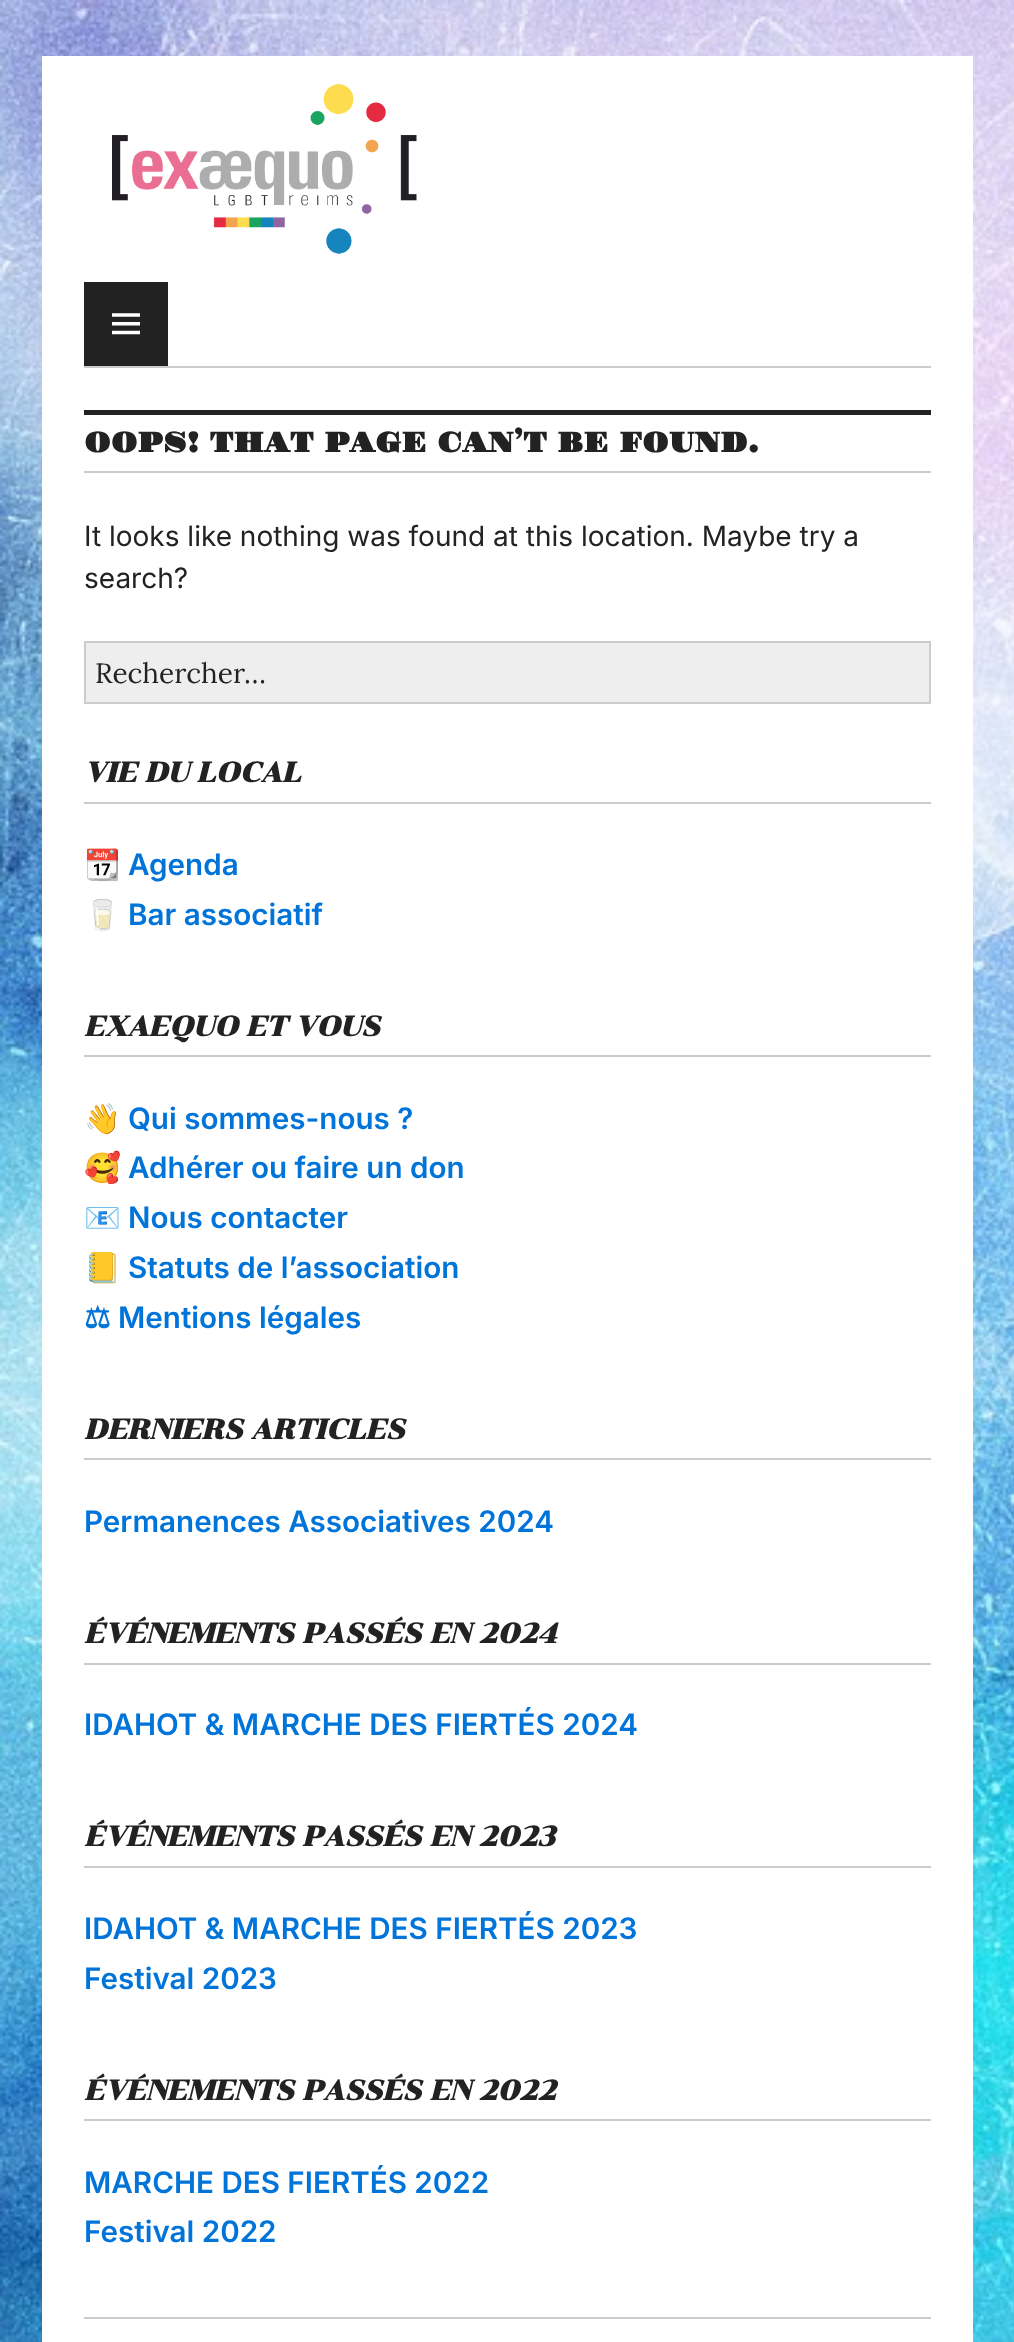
<svg xmlns="http://www.w3.org/2000/svg" width="1014" height="2342" viewBox="0 0 1014 2342">
  <rect width="100%" height="100%" fill="#ffffff"/>
  <image x="0" y="0" width="1014" height="2342" href="img1.png"/>
  <rect x="42" y="56" width="931" height="2286" fill="#ffffff"/>
  <image x="112" y="84" width="305" height="170" href="img2.png"/>
  <rect x="84" y="366" width="847" height="2" fill="#cccccc"/>
  <rect x="84" y="282" width="84" height="84" fill="#222222"/>
  <image x="112" y="313" width="28" height="22" href="img3.png"/>
  <rect x="84" y="410" width="847" height="5" fill="#222222"/>
  <rect x="84" y="471" width="847" height="2" fill="#cccccc"/>
  <text x="84" y="452" font-family="Gravitas One" font-size="28" font-weight="bold" fill="#222222">OOPS! THAT PAGE CAN’T BE FOUND.</text>
  <text x="84" y="546" font-family="Inter" font-size="28" fill="#222222">It looks like nothing was found at this location. Maybe try a</text>
  <text x="84" y="588" font-family="Inter" font-size="28" fill="#222222">search?</text>
  <rect x="85" y="642" width="845" height="61" fill="#eeeeee" stroke="#cccccc" stroke-width="2"/>
  <text x="95" y="683" font-family="Lora" font-size="28" fill="#222222">Rechercher…</text>
  <rect x="84" y="802" width="847" height="2" fill="#cccccc"/>
  <text x="84" y="782" font-family="Chonburi" font-size="28" font-weight="bold" font-style="italic" fill="#222222">VIE DU LOCAL</text>
  <text x="84" y="875" font-family="Noto Color Emoji" font-size="29.6" font-weight="bold" fill="#0074d9">📆</text>
  <text x="128" y="875" font-family="Inter" font-size="29.6" font-weight="600" fill="#0074d9">Agenda</text>
  <text x="84" y="925" font-family="Noto Color Emoji" font-size="29.6" font-weight="bold" fill="#0074d9">🥛</text>
  <text x="128" y="925" font-family="Inter" font-size="29.6" font-weight="600" fill="#0074d9">Bar associatif</text>
  <rect x="84" y="1055" width="847" height="2" fill="#cccccc"/>
  <text x="84" y="1036" font-family="Chonburi" font-size="28" font-weight="bold" font-style="italic" fill="#222222">EXAEQUO ET VOUS</text>
  <text x="84" y="1129" font-family="Noto Color Emoji" font-size="29.6" font-weight="bold" fill="#0074d9">👋</text>
  <text x="128" y="1129" font-family="Inter" font-size="29.6" font-weight="600" fill="#0074d9">Qui sommes-nous ?</text>
  <text x="84" y="1178" font-family="Noto Color Emoji" font-size="29.6" font-weight="bold" fill="#0074d9">🥰</text>
  <text x="128" y="1178" font-family="Inter" font-size="29.6" font-weight="600" fill="#0074d9">Adhérer ou faire un don</text>
  <text x="84" y="1228" font-family="Noto Color Emoji" font-size="29.6" font-weight="bold" fill="#0074d9">📧</text>
  <text x="128" y="1228" font-family="Inter" font-size="29.6" font-weight="600" fill="#0074d9">Nous contacter</text>
  <text x="84" y="1278" font-family="Noto Color Emoji" font-size="29.6" font-weight="bold" fill="#0074d9">📒</text>
  <text x="128" y="1278" font-family="Inter" font-size="29.6" font-weight="600" fill="#0074d9">Statuts de l’association</text>
  <text x="84" y="1328" font-family="DejaVu Sans" font-size="29.6" font-weight="bold" fill="#0074d9">⚖</text>
  <text x="118" y="1328" font-family="Inter" font-size="29.6" font-weight="600" fill="#0074d9">Mentions légales</text>
  <rect x="84" y="1458" width="847" height="2" fill="#cccccc"/>
  <text x="84" y="1439" font-family="Chonburi" font-size="28" font-weight="bold" font-style="italic" fill="#222222">DERNIERS ARTICLES</text>
  <text x="84" y="1532" font-family="Inter" font-size="29.6" font-weight="600" fill="#0074d9">Permanences Associatives 2024</text>
  <rect x="84" y="1663" width="847" height="2" fill="#cccccc"/>
  <text x="84" y="1643" font-family="Chonburi" font-size="28" font-weight="bold" font-style="italic" fill="#222222">ÉVÉNEMENTS PASSÉS EN 2024</text>
  <text x="84" y="1735" font-family="Inter" font-size="29.6" font-weight="600" fill="#0074d9">IDAHOT &amp; MARCHE DES FIERTÉS 2024</text>
  <rect x="84" y="1866" width="847" height="2" fill="#cccccc"/>
  <text x="84" y="1846" font-family="Chonburi" font-size="28" font-weight="bold" font-style="italic" fill="#222222">ÉVÉNEMENTS PASSÉS EN 2023</text>
  <text x="84" y="1939" font-family="Inter" font-size="29.6" font-weight="600" fill="#0074d9">IDAHOT &amp; MARCHE DES FIERTÉS 2023</text>
  <text x="84" y="1989" font-family="Inter" font-size="29.6" font-weight="600" fill="#0074d9">Festival 2023</text>
  <rect x="84" y="2119" width="847" height="2" fill="#cccccc"/>
  <text x="84" y="2100" font-family="Chonburi" font-size="28" font-weight="bold" font-style="italic" fill="#222222">ÉVÉNEMENTS PASSÉS EN 2022</text>
  <text x="84" y="2193" font-family="Inter" font-size="29.6" font-weight="600" fill="#0074d9">MARCHE DES FIERTÉS 2022</text>
  <text x="84" y="2242" font-family="Inter" font-size="29.6" font-weight="600" fill="#0074d9">Festival 2022</text>
  <rect x="84" y="2317" width="847" height="2" fill="#cccccc"/>
</svg>
